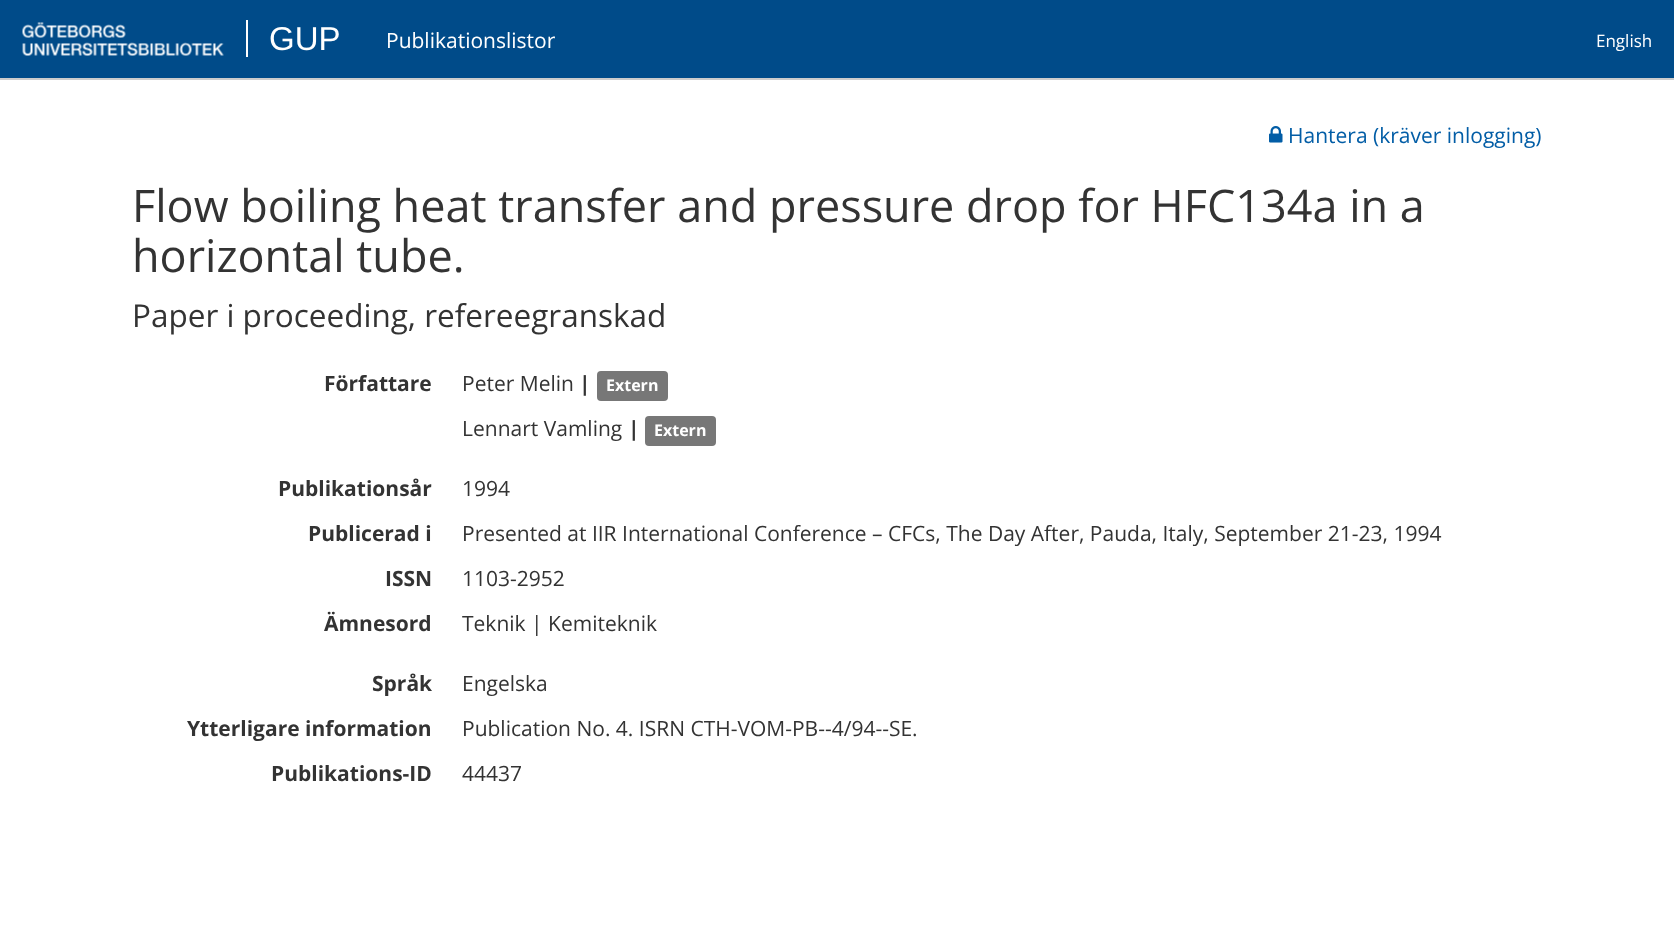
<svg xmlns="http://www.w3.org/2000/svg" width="1674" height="940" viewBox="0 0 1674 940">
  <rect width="100%" height="100%" fill="#ffffff"/>
  <rect x="0" y="0" width="1674" height="78" fill="#004b89"/>
  <rect x="0" y="78" width="1674" height="2" fill="#cccccc"/>
  <image x="22" y="22" width="202" height="34" href="img1.png"/>
  <rect x="246" y="20" width="2" height="37" fill="#ffffff"/>
  <text x="269" y="50" font-family="Liberation Sans" font-size="33" fill="#ffffff">GUP</text>
  <text x="386" y="48" font-family="Open Sans" font-size="21" fill="#ffffff">Publikationslistor</text>
  <text x="1596" y="47" font-family="Open Sans" font-size="17" fill="#ffffff">English</text>
  <image x="1269" y="126" width="14" height="17" href="img2.png"/>
  <text x="1288" y="143" font-family="Open Sans" font-size="21" fill="#025da6">Hantera (kräver inlogging)</text>
  <text x="132" y="222" font-family="Open Sans" font-size="45" fill="#333333">Flow boiling heat transfer and pressure drop for HFC134a in a</text>
  <text x="132" y="272" font-family="Open Sans" font-size="45" fill="#333333">horizontal tube.</text>
  <text x="132" y="327" font-family="Open Sans" font-size="31.5" fill="#333333">Paper i proceeding, refereegranskad</text>
  <text x="324" y="391" font-family="Open Sans" font-size="21" font-weight="bold" fill="#333333">Författare</text>
  <text x="462" y="391" font-family="Open Sans" font-size="21" fill="#333333">Peter Melin</text>
  <text x="579" y="391" font-family="Open Sans" font-size="21" font-weight="bold" fill="#333333">|</text>
  <rect x="597" y="371" width="71" height="30" rx="4" fill="#777777"/>
  <text x="606" y="391" font-family="Open Sans" font-size="16" font-weight="bold" fill="#ffffff">Extern</text>
  <text x="462" y="436" font-family="Open Sans" font-size="21" fill="#333333">Lennart Vamling</text>
  <text x="628" y="436" font-family="Open Sans" font-size="21" font-weight="bold" fill="#333333">|</text>
  <rect x="645" y="416" width="71" height="30" rx="4" fill="#777777"/>
  <text x="654" y="436" font-family="Open Sans" font-size="16" font-weight="bold" fill="#ffffff">Extern</text>
  <text x="278" y="496" font-family="Open Sans" font-size="21" font-weight="bold" fill="#333333">Publikationsår</text>
  <text x="462" y="496" font-family="Open Sans" font-size="21" fill="#333333">1994</text>
  <text x="308" y="541" font-family="Open Sans" font-size="21" font-weight="bold" fill="#333333">Publicerad i</text>
  <text x="462" y="541" font-family="Open Sans" font-size="21" fill="#333333">Presented at IIR International Conference – CFCs, The Day After, Pauda, Italy, September 21-23, 1994</text>
  <text x="385" y="586" font-family="Open Sans" font-size="21" font-weight="bold" fill="#333333">ISSN</text>
  <text x="462" y="586" font-family="Open Sans" font-size="21" fill="#333333">1103-2952</text>
  <text x="324" y="631" font-family="Open Sans" font-size="21" font-weight="bold" fill="#333333">Ämnesord</text>
  <text x="462" y="631" font-family="Open Sans" font-size="21" fill="#333333">Teknik | Kemiteknik</text>
  <text x="372" y="691" font-family="Open Sans" font-size="21" font-weight="bold" fill="#333333">Språk</text>
  <text x="462" y="691" font-family="Open Sans" font-size="21" fill="#333333">Engelska</text>
  <text x="187" y="736" font-family="Open Sans" font-size="21" font-weight="bold" fill="#333333">Ytterligare information</text>
  <text x="462" y="736" font-family="Open Sans" font-size="21" fill="#333333">Publication No. 4. ISRN CTH-VOM-PB--4/94--SE.</text>
  <text x="271" y="781" font-family="Open Sans" font-size="21" font-weight="bold" fill="#333333">Publikations-ID</text>
  <text x="462" y="781" font-family="Open Sans" font-size="21" fill="#333333">44437</text>
</svg>
